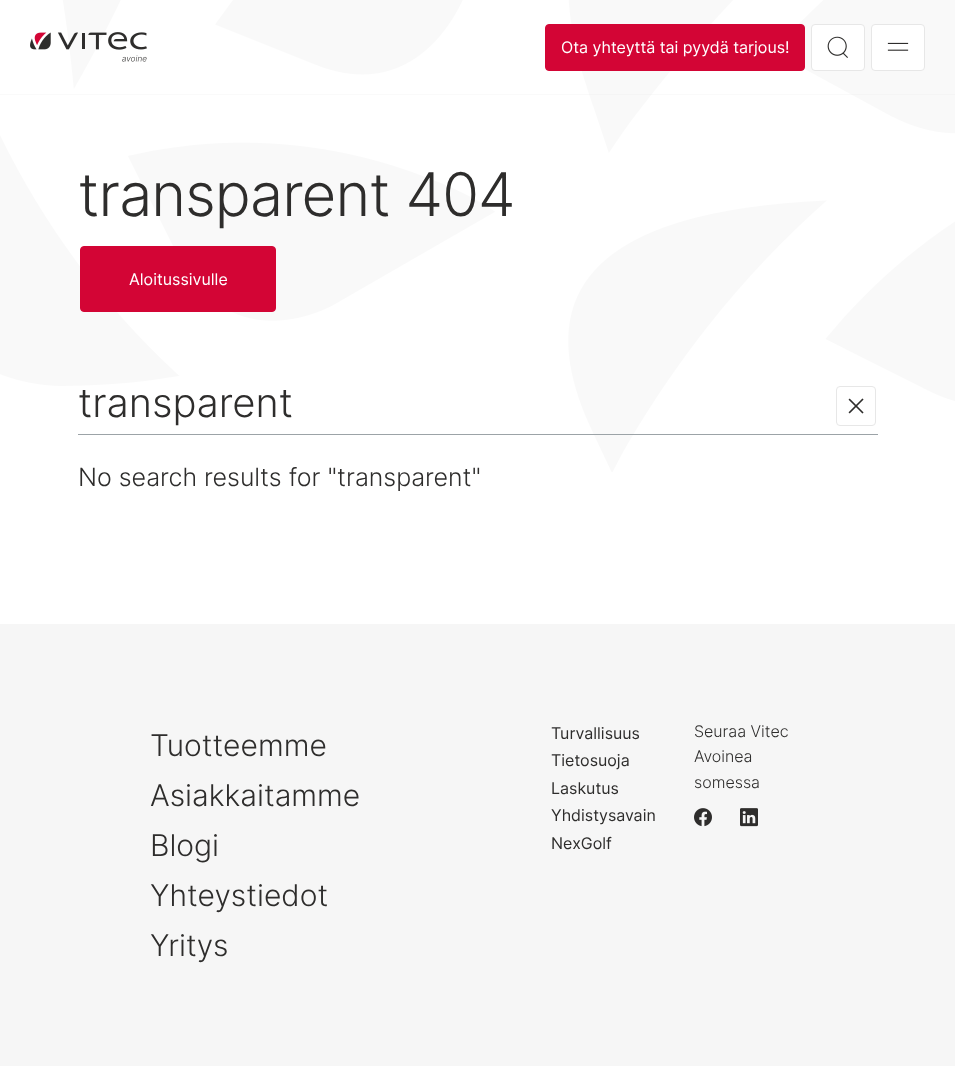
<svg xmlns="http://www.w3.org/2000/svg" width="955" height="1074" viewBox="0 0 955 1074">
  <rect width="100%" height="100%" fill="#ffffff"/>
  <image x="0" y="0" width="955" height="472" href="img4.png"/>
  <rect x="0" y="94" width="955" height="1" fill="#e7e7e7" fill-opacity="0.2"/>
  <image x="30" y="32" width="117" height="30" href="img1.png"/>
  <rect x="545.5" y="24.5" width="259" height="46" rx="3.5" fill="#d30535" stroke="#d30535"/>
  <text x="561" y="53" font-family="Inter" font-size="16" fill="#ffffff">Ota yhteyttä tai pyydä tarjous!</text>
  <rect x="811.5" y="24.5" width="53" height="46" rx="3.5" fill="#ffffff" stroke="#e7e7e7"/>
  <image x="827" y="36" width="21" height="22" href="img2.png"/>
  <rect x="871.5" y="24.5" width="53" height="46" rx="3.5" fill="#ffffff" stroke="#e7e7e7"/>
  <image x="887" y="42" width="22" height="9" href="img3.png"/>
  <text x="78" y="216" font-family="Inter" font-size="60" font-weight="300" letter-spacing="-1" fill="#2e2d2c">transparent 404</text>
  <rect x="80.5" y="246.5" width="195" height="65" rx="3.5" fill="#d30535" stroke="#d30535"/>
  <text x="129" y="285" font-family="Inter" font-size="16" fill="#ffffff">Aloitussivulle</text>
  <rect x="78" y="434" width="800" height="1" fill="#9ca3a7"/>
  <text x="78" y="417" font-family="Inter" font-size="40" font-weight="300" fill="#2e2d2c">transparent</text>
  <rect x="836.5" y="386.5" width="39" height="39" rx="3.5" fill="none" stroke="#e7e7e7"/>
  <image x="848" y="398" width="16" height="16" href="img5.png"/>
  <text x="78" y="486" font-family="Inter" font-size="25" font-weight="300" fill="#2e2d2c">No search results for "transparent"</text>
  <rect x="0" y="624" width="955" height="442" fill="#f6f6f6"/>
  <text x="150" y="756" font-family="Inter" font-size="30" font-weight="300" fill="#2e2d2c">Tuotteemme</text>
  <text x="150" y="806" font-family="Inter" font-size="30" font-weight="300" fill="#2e2d2c">Asiakkaitamme</text>
  <text x="150" y="856" font-family="Inter" font-size="30" font-weight="300" fill="#2e2d2c">Blogi</text>
  <text x="150" y="906" font-family="Inter" font-size="30" font-weight="300" fill="#2e2d2c">Yhteystiedot</text>
  <text x="150" y="956" font-family="Inter" font-size="30" font-weight="300" fill="#2e2d2c">Yritys</text>
  <text x="551" y="739" font-family="Inter" font-size="16" fill="#2e2d2c">Turvallisuus</text>
  <text x="551" y="766" font-family="Inter" font-size="16" fill="#2e2d2c">Tietosuoja</text>
  <text x="551" y="794" font-family="Inter" font-size="16" fill="#2e2d2c">Laskutus</text>
  <text x="551" y="821" font-family="Inter" font-size="16" fill="#2e2d2c">Yhdistysavain</text>
  <text x="551" y="849" font-family="Inter" font-size="16" fill="#2e2d2c">NexGolf</text>
  <text x="694" y="737" font-family="Inter" font-size="16" font-weight="300" fill="#2e2d2c">Seuraa Vitec</text>
  <text x="694" y="762" font-family="Inter" font-size="16" font-weight="300" fill="#2e2d2c">Avoinea</text>
  <text x="694" y="788" font-family="Inter" font-size="16" font-weight="300" fill="#2e2d2c">somessa</text>
  <image x="694" y="808" width="18" height="19" href="img6.png"/>
  <image x="740" y="808" width="18" height="19" href="img7.png"/>
</svg>
